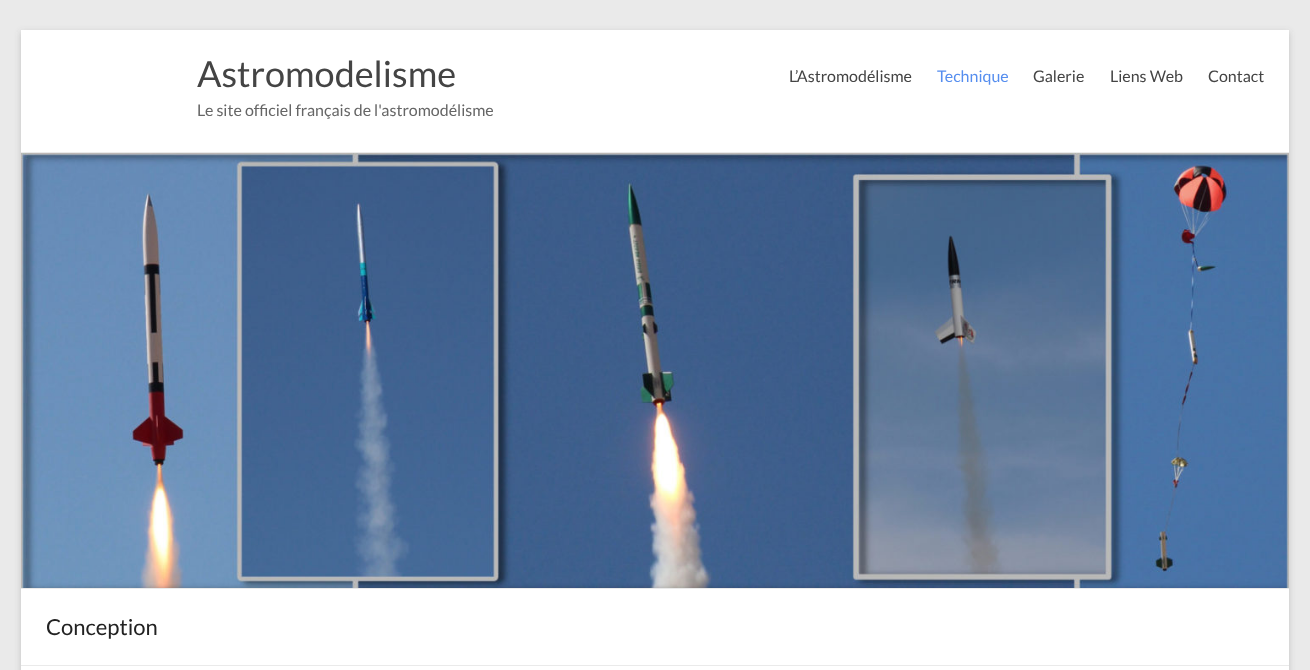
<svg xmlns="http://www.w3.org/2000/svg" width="1310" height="670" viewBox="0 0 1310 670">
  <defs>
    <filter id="blur1" x="-50%" y="-200%" width="200%" height="500%"><feGaussianBlur stdDeviation="3"/></filter>
  </defs>
  <rect width="100%" height="100%" fill="#eaeaea"/>
  <rect x="21" y="32" width="1268" height="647" fill="#646464" fill-opacity="0.3" filter="url(#blur1)"/>
  <rect x="21" y="30" width="1268" height="640" fill="#ffffff"/>
  <rect x="21" y="152" width="1268" height="1" fill="#eaeaea"/>
  <text x="197" y="87" font-family="Lato" font-size="36" fill="#444444">Astromodelisme</text>
  <text x="197" y="116" font-family="Lato" font-size="16" fill="#666666">Le site officiel français de l'astromodélisme</text>
  <text x="789" y="82" font-family="Lato" font-size="16" fill="#444444">L’Astromodélisme</text>
  <text x="937" y="82" font-family="Lato" font-size="16" fill="#568eef">Technique</text>
  <text x="1033" y="82" font-family="Lato" font-size="16" fill="#444444">Galerie</text>
  <text x="1110" y="82" font-family="Lato" font-size="16" fill="#444444">Liens Web</text>
  <text x="1208" y="82" font-family="Lato" font-size="16" fill="#444444">Contact</text>
  <image x="21" y="153" width="1268" height="435" href="img1.png"/>
  <rect x="21" y="588" width="1268" height="1" fill="#eaeaea"/>
  <rect x="21" y="665" width="1268" height="1" fill="#eaeaea"/>
  <text x="46" y="635" font-family="Lato" font-size="22" fill="#222222">Conception</text>
</svg>
